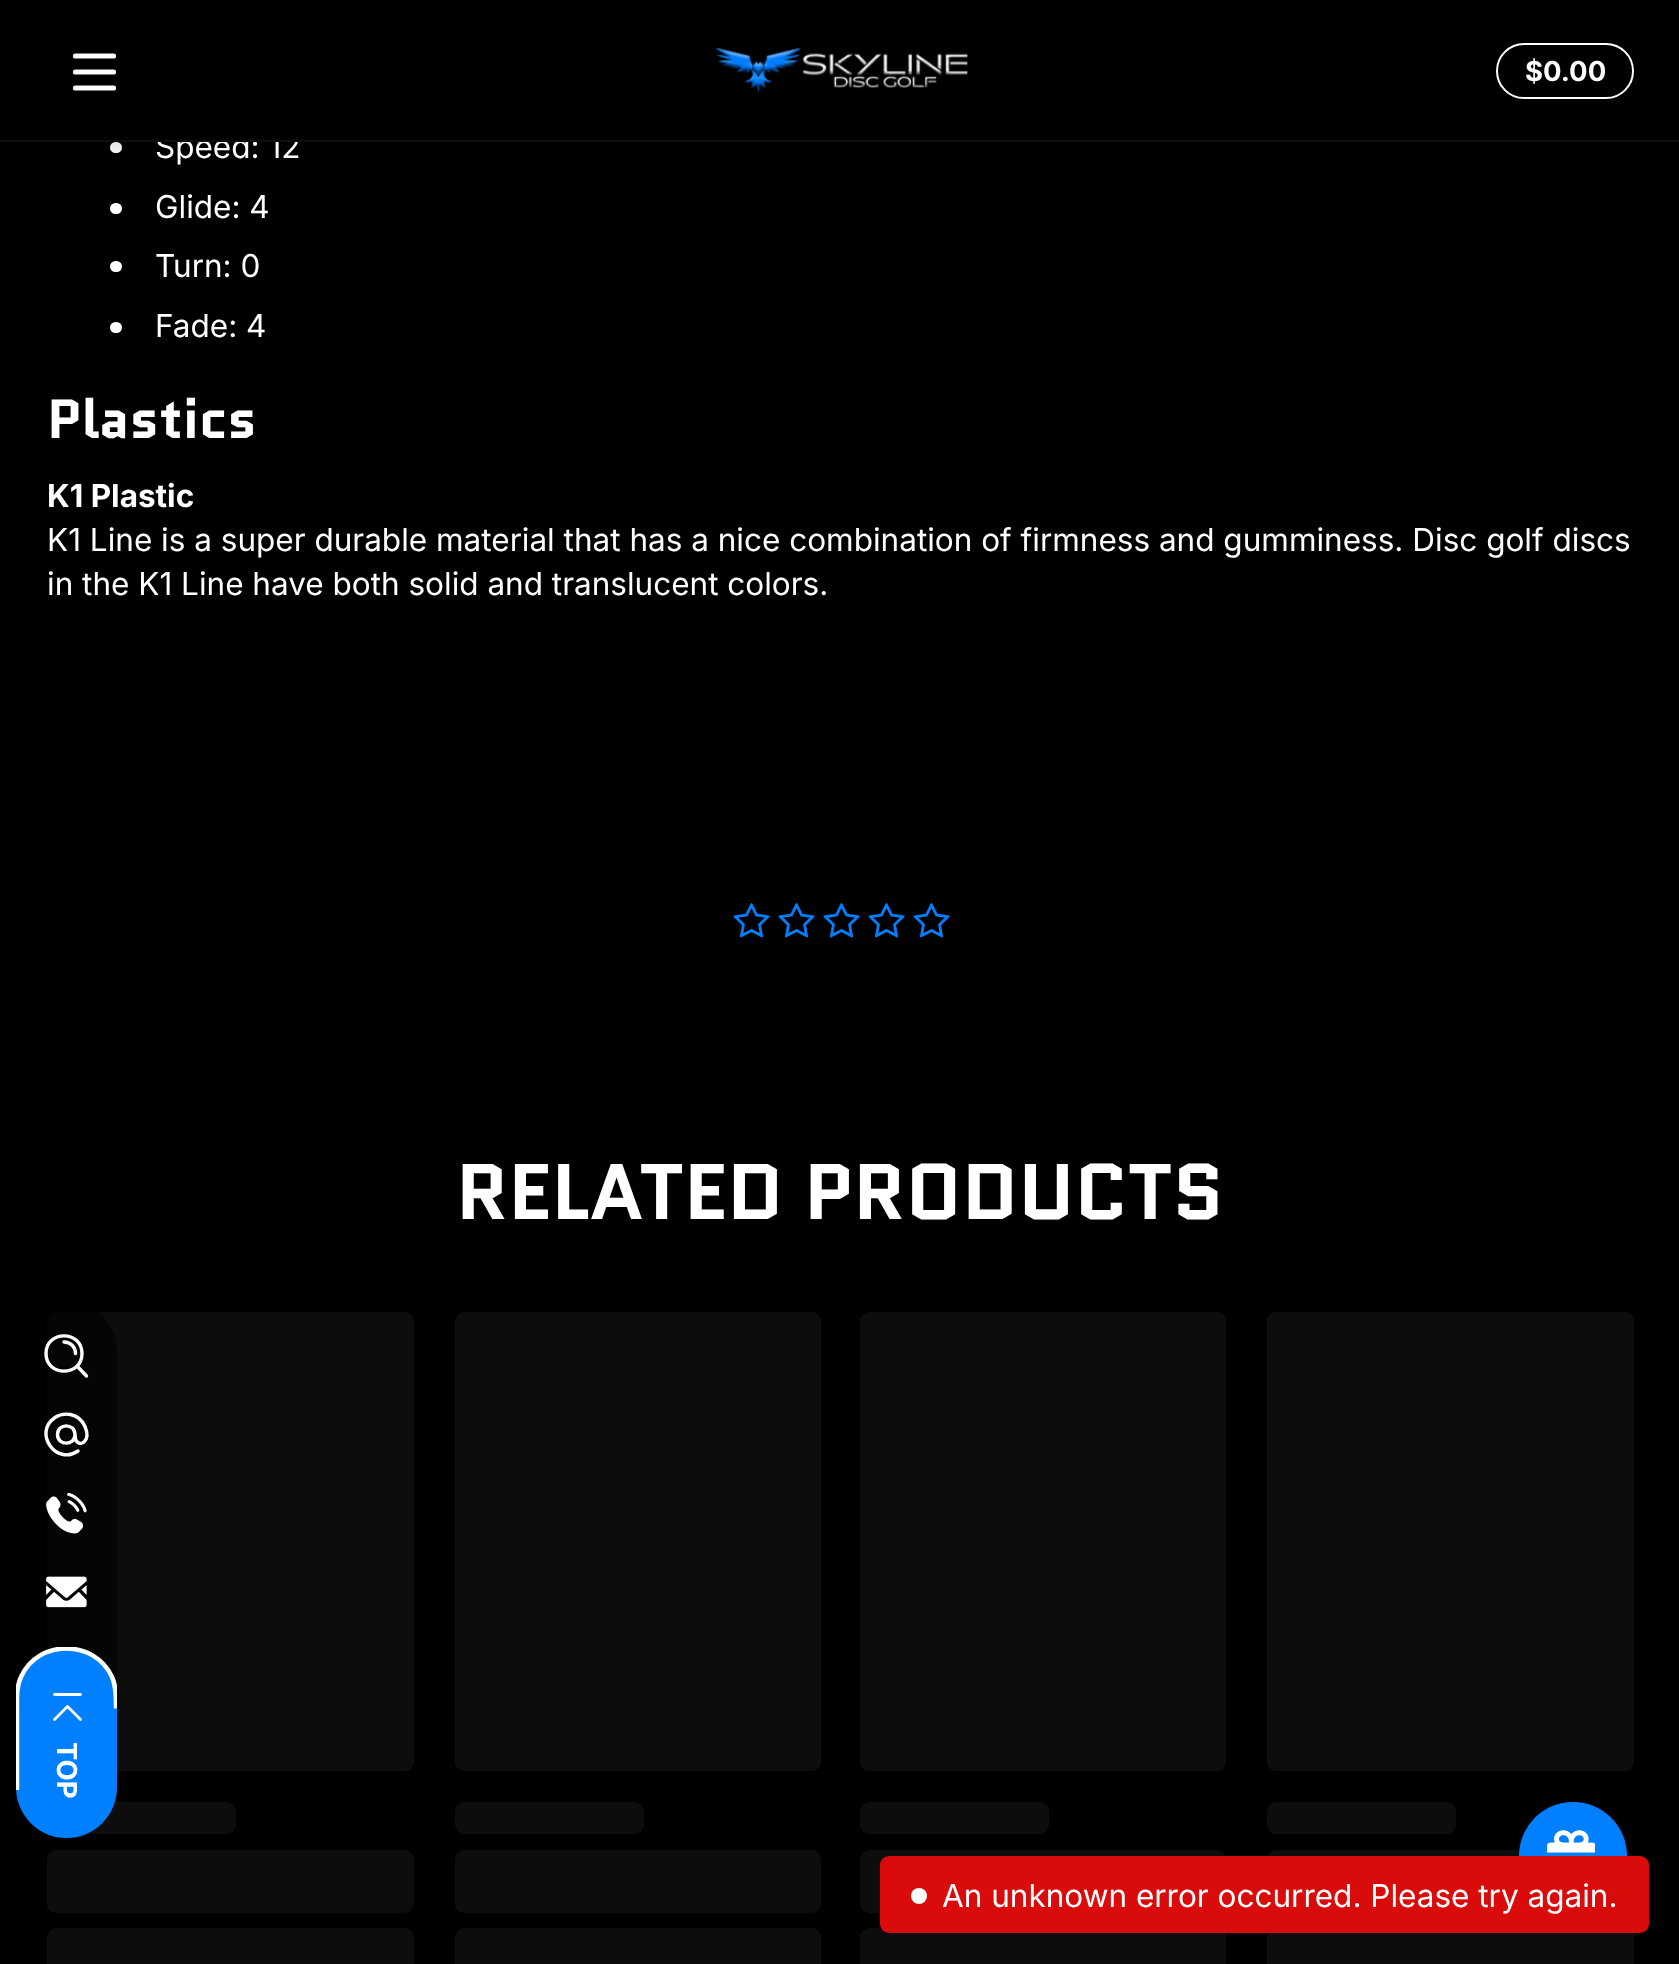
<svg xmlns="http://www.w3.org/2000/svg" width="1679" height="1964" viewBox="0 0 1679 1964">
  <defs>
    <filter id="blur1" x="-50%" y="-200%" width="200%" height="500%"><feGaussianBlur stdDeviation="8"/></filter>
    <clipPath id="clip1"><rect x="16" y="1647" width="101" height="191"/></clipPath>
  </defs>
  <rect width="100%" height="100%" fill="#000000"/>
  <rect x="110" y="142" width="12" height="11" rx="5.5" fill="#ffffff"/>
  <rect x="0" y="9" width="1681" height="142" fill="#000000" fill-opacity="0.1" filter="url(#blur1)"/>
  <text x="155" y="158" font-family="Inter" font-size="31.5" fill="#ffffff">Speed: 12</text>
  <rect x="157" y="134" width="141" height="6" fill="#000000"/>
  <path d="M75.5 56H113.5M75.5 72H113.5M75.5 88H113.5" fill="none" stroke="#ffffff" stroke-width="5.2" stroke-linecap="round"/>
  <image x="715" y="47" width="254" height="45" href="img1.png"/>
  <rect x="1497" y="44" width="136" height="54" rx="27" fill="none" stroke="#ffffff" stroke-width="2"/>
  <text x="1525" y="81" font-family="Inter" font-size="27.5" font-weight="bold" fill="#ffffff">$0.00</text>
  <rect x="0" y="140" width="1679" height="2" fill="#0d0d0d"/>
  <rect x="110" y="203" width="12" height="11" rx="5.5" fill="#ffffff"/>
  <text x="155" y="218" font-family="Inter" font-size="31.5" fill="#ffffff">Glide: 4</text>
  <rect x="110" y="261" width="12" height="11" rx="5.5" fill="#ffffff"/>
  <text x="155" y="277" font-family="Inter" font-size="31.5" fill="#ffffff">Turn: 0</text>
  <rect x="110" y="322" width="12" height="11" rx="5.5" fill="#ffffff"/>
  <text x="155" y="337" font-family="Inter" font-size="31.5" fill="#ffffff">Fade: 4</text>
  <text x="47" y="438" font-family="Quantico" font-size="55" font-weight="bold" fill="#ffffff">Plastics</text>
  <text x="47" y="507" font-family="Inter" font-size="31.5" font-weight="bold" fill="#ffffff">K1 Plastic</text>
  <text x="47" y="551" font-family="Inter" font-size="31.5" fill="#ffffff">K1 Line is a super durable material that has a nice combination of firmness and gumminess. Disc golf discs</text>
  <text x="47" y="595" font-family="Inter" font-size="31.5" fill="#ffffff">in the K1 Line have both solid and translucent colors.</text>
  <image x="733" y="903" width="37" height="35" href="img2.png"/>
  <image x="778" y="903" width="37" height="35" href="img2.png"/>
  <image x="823" y="903" width="37" height="35" href="img2.png"/>
  <image x="868" y="903" width="37" height="35" href="img2.png"/>
  <image x="913" y="903" width="37" height="35" href="img2.png"/>
  <text x="456" y="1219" font-family="Quantico" font-size="78.75" font-weight="bold" fill="#ffffff">RELATED PRODUCTS</text>
  <rect x="47" y="1312" width="367" height="459" rx="9" fill="#0d0d0d"/>
  <rect x="47" y="1802" width="189" height="32" rx="9" fill="#0d0d0d"/>
  <rect x="47" y="1850" width="367" height="63" rx="9" fill="#0d0d0d"/>
  <rect x="47" y="1928" width="367" height="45" rx="9" fill="#0d0d0d"/>
  <rect x="455" y="1312" width="366" height="459" rx="9" fill="#0d0d0d"/>
  <rect x="455" y="1802" width="189" height="32" rx="9" fill="#0d0d0d"/>
  <rect x="455" y="1850" width="366" height="63" rx="9" fill="#0d0d0d"/>
  <rect x="455" y="1928" width="366" height="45" rx="9" fill="#0d0d0d"/>
  <rect x="860" y="1312" width="366" height="459" rx="9" fill="#0d0d0d"/>
  <rect x="860" y="1802" width="189" height="32" rx="9" fill="#0d0d0d"/>
  <rect x="860" y="1850" width="366" height="63" rx="9" fill="#0d0d0d"/>
  <rect x="860" y="1928" width="366" height="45" rx="9" fill="#0d0d0d"/>
  <rect x="1267" y="1312" width="367" height="459" rx="9" fill="#0d0d0d"/>
  <rect x="1267" y="1802" width="189" height="32" rx="9" fill="#0d0d0d"/>
  <rect x="1267" y="1850" width="367" height="63" rx="9" fill="#0d0d0d"/>
  <rect x="1267" y="1928" width="367" height="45" rx="9" fill="#0d0d0d"/>
  <rect x="16" y="1301" width="101" height="537" rx="50.5" fill="#000000" fill-opacity="0.6"/>
  <path d="M64 1342C70.5 1342 75.5 1347 75.5 1353.5M77 1366L86.5 1376M82 1353.5C82 1377 46 1377 46 1353.5C46 1330 82 1330 82 1353.5Z" fill="none" stroke="#ffffff" stroke-width="3.4" stroke-linecap="round" stroke-linejoin="round"/>
  <path d="M75 1434.5C75 1446 57.5 1446 57.5 1434.5C57.5 1423 75 1423 75 1434.5ZM75 1434.5L75.5 1439.5C79 1448 91.5 1442 85 1426.5C82.5 1420.5 77 1416 70.5 1414.5C65 1413.5 59.5 1414.5 55 1417.5C32.5 1433 56.5 1466 78 1451" fill="none" stroke="#ffffff" stroke-width="3.4" stroke-linecap="round" stroke-linejoin="round"/>
  <image x="46" y="1492" width="41" height="42" href="img3.png"/>
  <image x="46" y="1576" width="41" height="32" href="img4.png"/>
  <rect x="16" y="1647" width="101" height="191" rx="50.5" fill="#0080ff"/>
  <path d="M54.5 1719.5L67.5 1706.5L80.5 1719.5M54.5 1694.5H80.5" fill="none" stroke="#ffffff" stroke-width="2.8" stroke-linecap="round" stroke-linejoin="round"/>
  <g clip-path="url(#clip1)">
    <path d="M17 1790V1707C17 1696.5 16.5 1686.5 21 1677C37.5 1639 95 1639 112 1677C116.5 1687 116 1698 116 1708.5" fill="none" stroke="#ffffff" stroke-width="4.5"/>
  </g>
  <text x="57" y="1742" transform="rotate(90 57 1742)" font-family="Inter" font-size="27.5" font-weight="bold" fill="#ffffff">TOP</text>
  <circle cx="1573" cy="1856" r="54" fill="#0080ff"/>
  <image x="1547" y="1830" width="48" height="23" href="img5.png"/>
  <rect x="880" y="1856" width="769" height="77" rx="9" fill="#da0b0b"/>
  <circle cx="919" cy="1896" r="8" fill="#ffffff"/>
  <text x="942" y="1907" font-family="Inter" font-size="31.5" fill="#ffffff">An unknown error occurred. Please try again.</text>
</svg>
